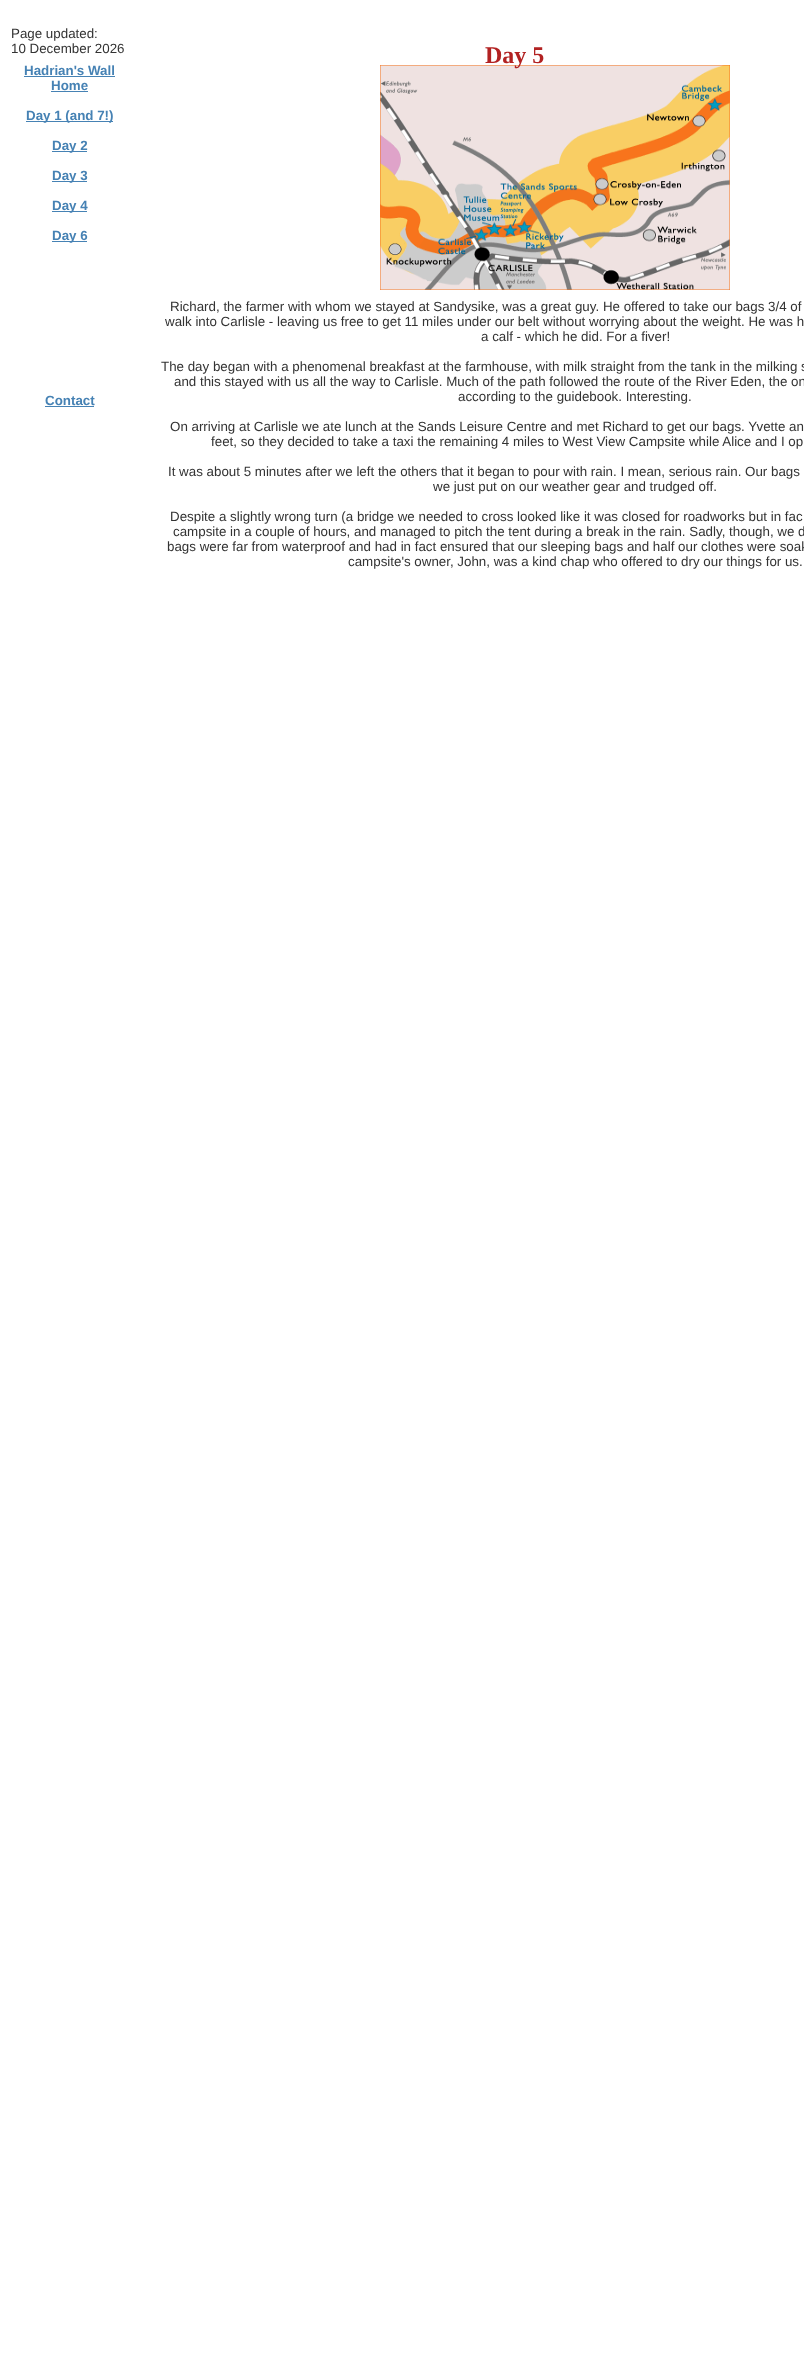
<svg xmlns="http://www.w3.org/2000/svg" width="804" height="2367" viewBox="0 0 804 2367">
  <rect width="100%" height="100%" fill="#ffffff"/>
  <text x="11" y="38" font-family="Liberation Sans" font-size="13.35" fill="#333333">Page updated:</text>
  <text x="11" y="53" font-family="Liberation Sans" font-size="13.35" fill="#333333">10 December 2026</text>
  <image x="380" y="65" width="350" height="225" href="img1.png"/>
  <text x="485" y="63" font-family="Liberation Serif" font-size="24" font-weight="bold" fill="#b22222">Day 5</text>
  <text x="170" y="311" font-family="Liberation Sans" font-size="13.35" fill="#333333">Richard, the farmer with whom we stayed at Sandysike, was a great guy. He offered to take our bags 3/4 of</text>
  <text x="165" y="326" font-family="Liberation Sans" font-size="13.35" fill="#333333">walk into Carlisle - leaving us free to get 11 miles under our belt without worrying about the weight. He was h</text>
  <text x="481" y="341" font-family="Liberation Sans" font-size="13.35" fill="#333333">a calf - which he did. For a fiver!</text>
  <text x="161" y="371" font-family="Liberation Sans" font-size="13.35" fill="#333333">The day began with a phenomenal breakfast at the farmhouse, with milk straight from the tank in the milking s</text>
  <text x="174" y="386" font-family="Liberation Sans" font-size="13.35" fill="#333333">and this stayed with us all the way to Carlisle. Much of the path followed the route of the River Eden, the on</text>
  <text x="458" y="401" font-family="Liberation Sans" font-size="13.35" fill="#333333">according to the guidebook. Interesting.</text>
  <text x="170" y="431" font-family="Liberation Sans" font-size="13.35" fill="#333333">On arriving at Carlisle we ate lunch at the Sands Leisure Centre and met Richard to get our bags. Yvette an</text>
  <text x="211" y="446" font-family="Liberation Sans" font-size="13.35" fill="#333333">feet, so they decided to take a taxi the remaining 4 miles to West View Campsite while Alice and I op</text>
  <text x="168" y="476" font-family="Liberation Sans" font-size="13.35" fill="#333333">It was about 5 minutes after we left the others that it began to pour with rain. I mean, serious rain. Our bags</text>
  <text x="433" y="491" font-family="Liberation Sans" font-size="13.35" fill="#333333">we just put on our weather gear and trudged off.</text>
  <text x="170" y="521" font-family="Liberation Sans" font-size="13.35" fill="#333333">Despite a slightly wrong turn (a bridge we needed to cross looked like it was closed for roadworks but in fac</text>
  <text x="173" y="536" font-family="Liberation Sans" font-size="13.35" fill="#333333">campsite in a couple of hours, and managed to pitch the tent during a break in the rain. Sadly, though, we d</text>
  <text x="167" y="551" font-family="Liberation Sans" font-size="13.35" fill="#333333">bags were far from waterproof and had in fact ensured that our sleeping bags and half our clothes were soak</text>
  <text x="348" y="566" font-family="Liberation Sans" font-size="13.35" fill="#333333">campsite's owner, John, was a kind chap who offered to dry our things for us.</text>
  <text x="24" y="75" font-family="Liberation Sans" font-size="13.35" font-weight="bold" fill="#4682b4">Hadrian's Wall</text>
  <rect x="24" y="76" width="91" height="1" fill="#4682b4"/>
  <text x="51" y="90" font-family="Liberation Sans" font-size="13.35" font-weight="bold" fill="#4682b4">Home</text>
  <rect x="51" y="91" width="37" height="1" fill="#4682b4"/>
  <rect x="26" y="121" width="87" height="1" fill="#4682b4"/>
  <text x="26" y="120" font-family="Liberation Sans" font-size="13.35" font-weight="bold" fill="#4682b4">Day 1 (and 7!)</text>
  <rect x="52" y="151" width="35" height="1" fill="#4682b4"/>
  <text x="52" y="150" font-family="Liberation Sans" font-size="13.35" font-weight="bold" fill="#4682b4">Day 2</text>
  <rect x="52" y="181" width="35" height="1" fill="#4682b4"/>
  <text x="52" y="180" font-family="Liberation Sans" font-size="13.35" font-weight="bold" fill="#4682b4">Day 3</text>
  <rect x="52" y="211" width="35" height="1" fill="#4682b4"/>
  <text x="52" y="210" font-family="Liberation Sans" font-size="13.35" font-weight="bold" fill="#4682b4">Day 4</text>
  <rect x="52" y="241" width="35" height="1" fill="#4682b4"/>
  <text x="52" y="240" font-family="Liberation Sans" font-size="13.35" font-weight="bold" fill="#4682b4">Day 6</text>
  <text x="45" y="405" font-family="Liberation Sans" font-size="13.35" font-weight="bold" fill="#4682b4">Contact</text>
  <rect x="45" y="406" width="49" height="1" fill="#4682b4"/>
</svg>
